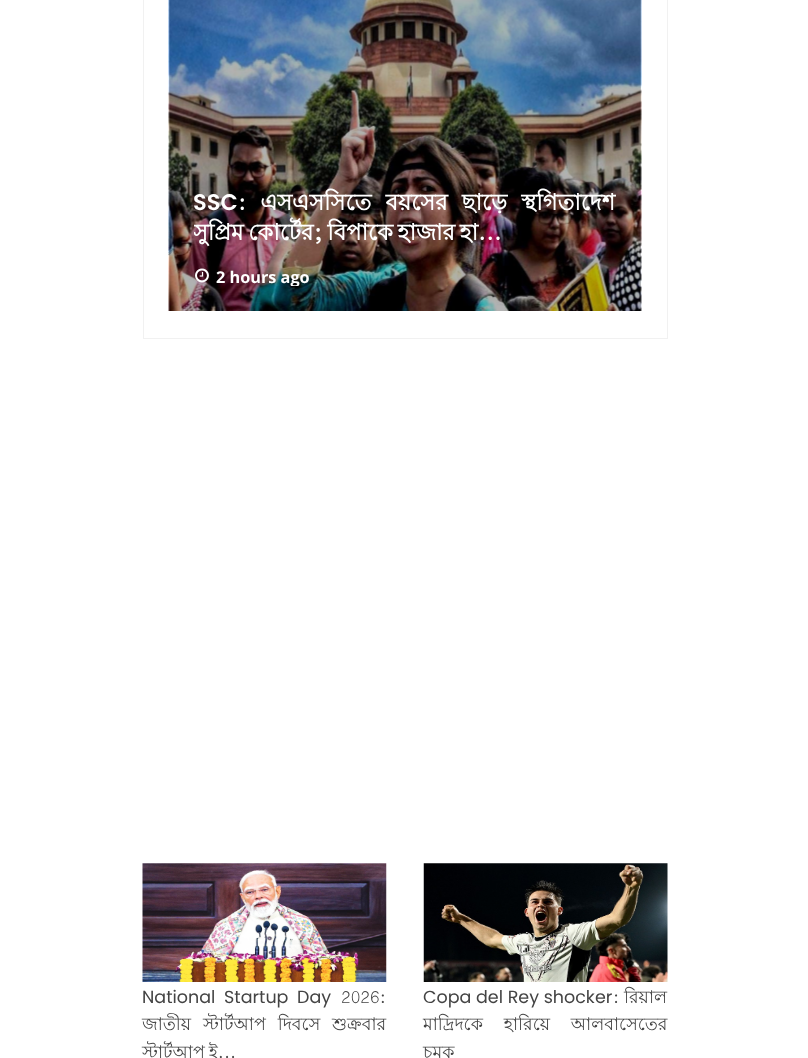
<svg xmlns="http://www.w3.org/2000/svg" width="808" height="1058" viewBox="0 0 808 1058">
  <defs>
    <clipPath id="clip1"><rect x="194" y="188" width="422" height="98"/></clipPath>
    <clipPath id="clip2"><rect x="194" y="260" width="422" height="26"/></clipPath>
  </defs>
  <rect width="100%" height="100%" fill="#ffffff"/>
  <rect x="143.5" y="-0.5" width="524" height="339" fill="none" stroke="#f1f1f1"/>
  <image x="168" y="0" width="474" height="311" href="img1.png"/>
  <text x="193" y="210" font-family="Poppins" font-size="22.5" font-weight="600" fill="#ffffff">SSC</text>
  <text x="238" y="210" word-spacing="8" font-family="Lohit Bengali" font-size="22.5" font-weight="bold" fill="#ffffff">: এসএসসিতে বয়সের ছাড়ে স্থগিতাদেশ</text>
  <g clip-path="url(#clip1)">
    <text x="193" y="240" word-spacing="-1.5" font-family="Lohit Bengali" font-size="22.5" font-weight="bold" fill="#ffffff">সুপ্রিম কোর্টের; বিপাকে হাজার হা...</text>
  </g>
  <image x="195" y="268" width="14" height="15" href="img2.png"/>
  <g clip-path="url(#clip2)">
    <text x="216" y="283" font-family="Open Sans" font-size="16.25" font-weight="bold" fill="#ffffff">2 hours ago</text>
  </g>
  <image x="142" y="863" width="245" height="119" href="img3.png"/>
  <text x="142" y="1003" word-spacing="4" font-family="Poppins" font-size="17.5" fill="#444444">National Startup Day</text>
  <text x="341" y="1003" font-family="Lohit Bengali" font-size="17.5" fill="#444444">2026:</text>
  <text x="142" y="1030" word-spacing="7" font-family="Lohit Bengali" font-size="17.5" fill="#444444">জাতীয় স্টার্টআপ দিবসে শুক্রবার</text>
  <text x="142" y="1058" word-spacing="-1" font-family="Lohit Bengali" font-size="17.5" fill="#444444">স্টার্টআপ ই...</text>
  <image x="423" y="863" width="245" height="119" href="img4.png"/>
  <text x="423" y="1003" font-family="Poppins" font-size="17.5" fill="#444444">Copa del Rey shocker</text>
  <text x="613" y="1003" font-family="Lohit Bengali" font-size="17.5" fill="#444444">: রিয়াল</text>
  <text x="423" y="1030" word-spacing="16" font-family="Lohit Bengali" font-size="17.5" fill="#444444">মাদ্রিদকে হারিয়ে আলবাসেতের</text>
  <text x="423" y="1058" font-family="Lohit Bengali" font-size="17.5" fill="#444444">চমক</text>
</svg>
